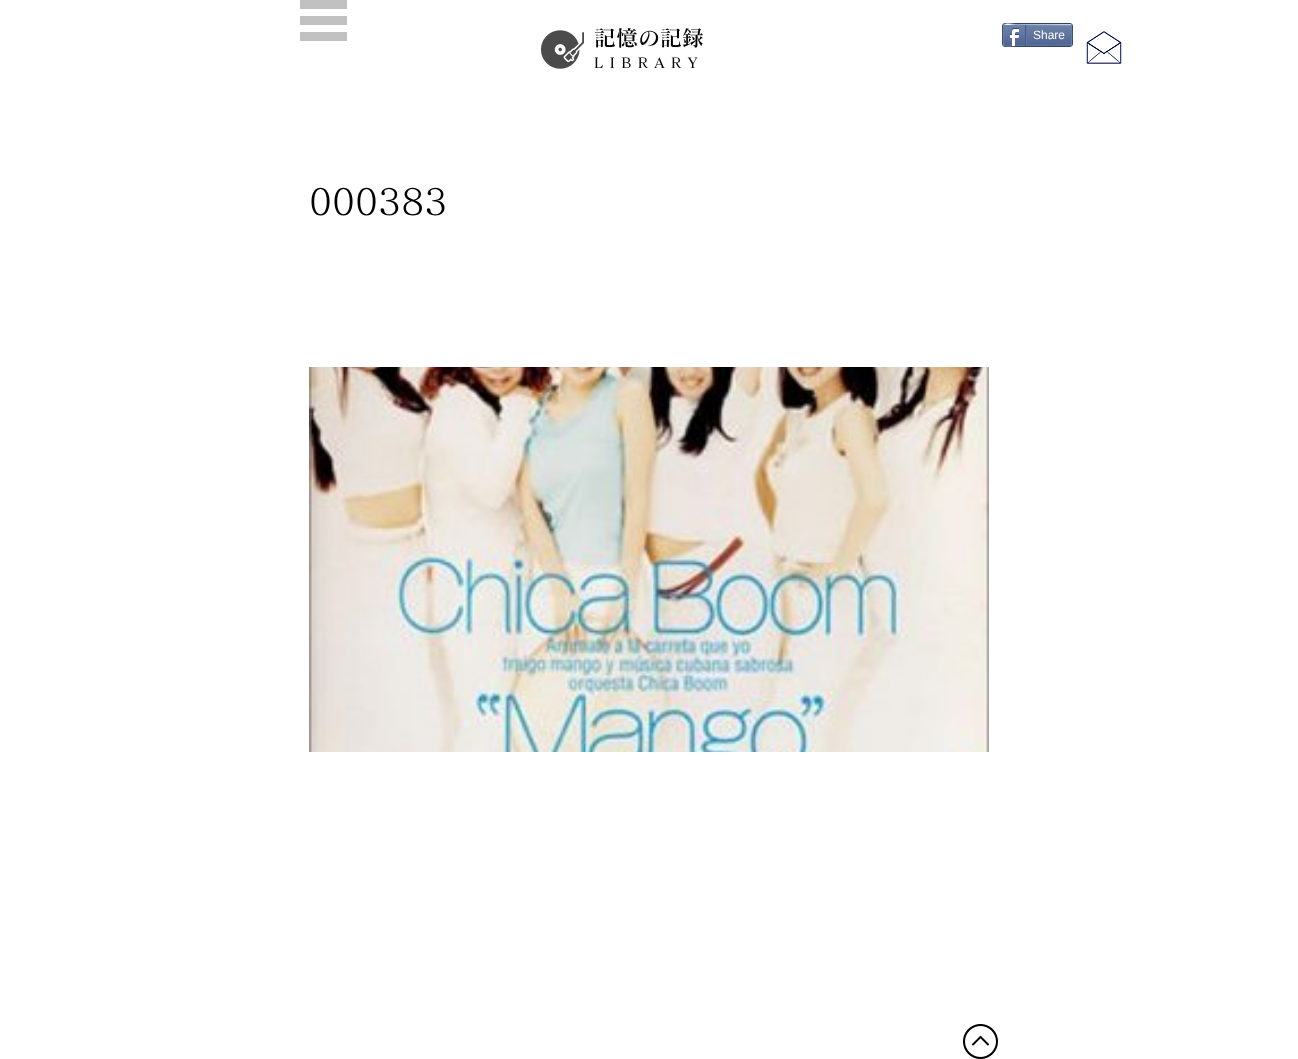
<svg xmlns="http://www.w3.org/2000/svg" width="1298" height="1059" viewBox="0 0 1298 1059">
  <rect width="100%" height="100%" fill="#ffffff"/>
  <rect x="300" y="0" width="47" height="9" fill="#c2c1c1"/>
  <rect x="300" y="16" width="47" height="9" fill="#c2c1c1"/>
  <rect x="300" y="32" width="47" height="9" fill="#c2c1c1"/>
  <image x="541" y="30" width="43" height="39" href="img1.png"/>
  <text x="594" y="46" font-family="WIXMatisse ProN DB" font-size="22" font-weight="600" fill="#000000">記憶の記録</text>
  <text x="594" y="68" font-family="WIXMatisse ProN DB" font-size="14" font-weight="600" letter-spacing="6.5" fill="#000000">LIBRARY</text>
  <rect x="1002.5" y="23.5" width="70" height="23" rx="2.5" fill="none" stroke="#2d4565"/>
  <image x="1003" y="25" width="69" height="21" href="img2.png"/>
  <path d="M1004 25C1007 22 1012 24.5 1016 24.5L1071 25" fill="none" stroke="#9aabc6"/>
  <path d="M1071 25C1072 25.5 1072 44.5 1071 45" fill="none" stroke="#6f83ad"/>
  <path d="M1071 45L1016 45.5C1012 45.5 1007 48 1004 45" fill="none" stroke="#6176a3"/>
  <path d="M1004 45C1003 44.5 1003 25.5 1004 25" fill="none" stroke="#6f83ad"/>
  <image x="1009" y="28" width="10" height="18" href="img3.png"/>
  <rect x="1025" y="25" width="1" height="21" fill="#425e85"/>
  <text x="1033" y="39" font-family="Liberation Sans" font-size="12" fill="#ffffff">Share</text>
  <rect x="1026" y="25" width="1" height="20" fill="#6176a3"/>
  <image x="1086" y="31" width="36" height="33" href="img4.png"/>
  <text x="309" y="215" font-family="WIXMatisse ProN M" font-size="36" font-weight="500" fill="#000000">000383</text>
  <image x="309" y="367" width="680" height="385" href="img5.png"/>
  <image x="963" y="1024" width="35" height="35" href="img6.png"/>
</svg>
